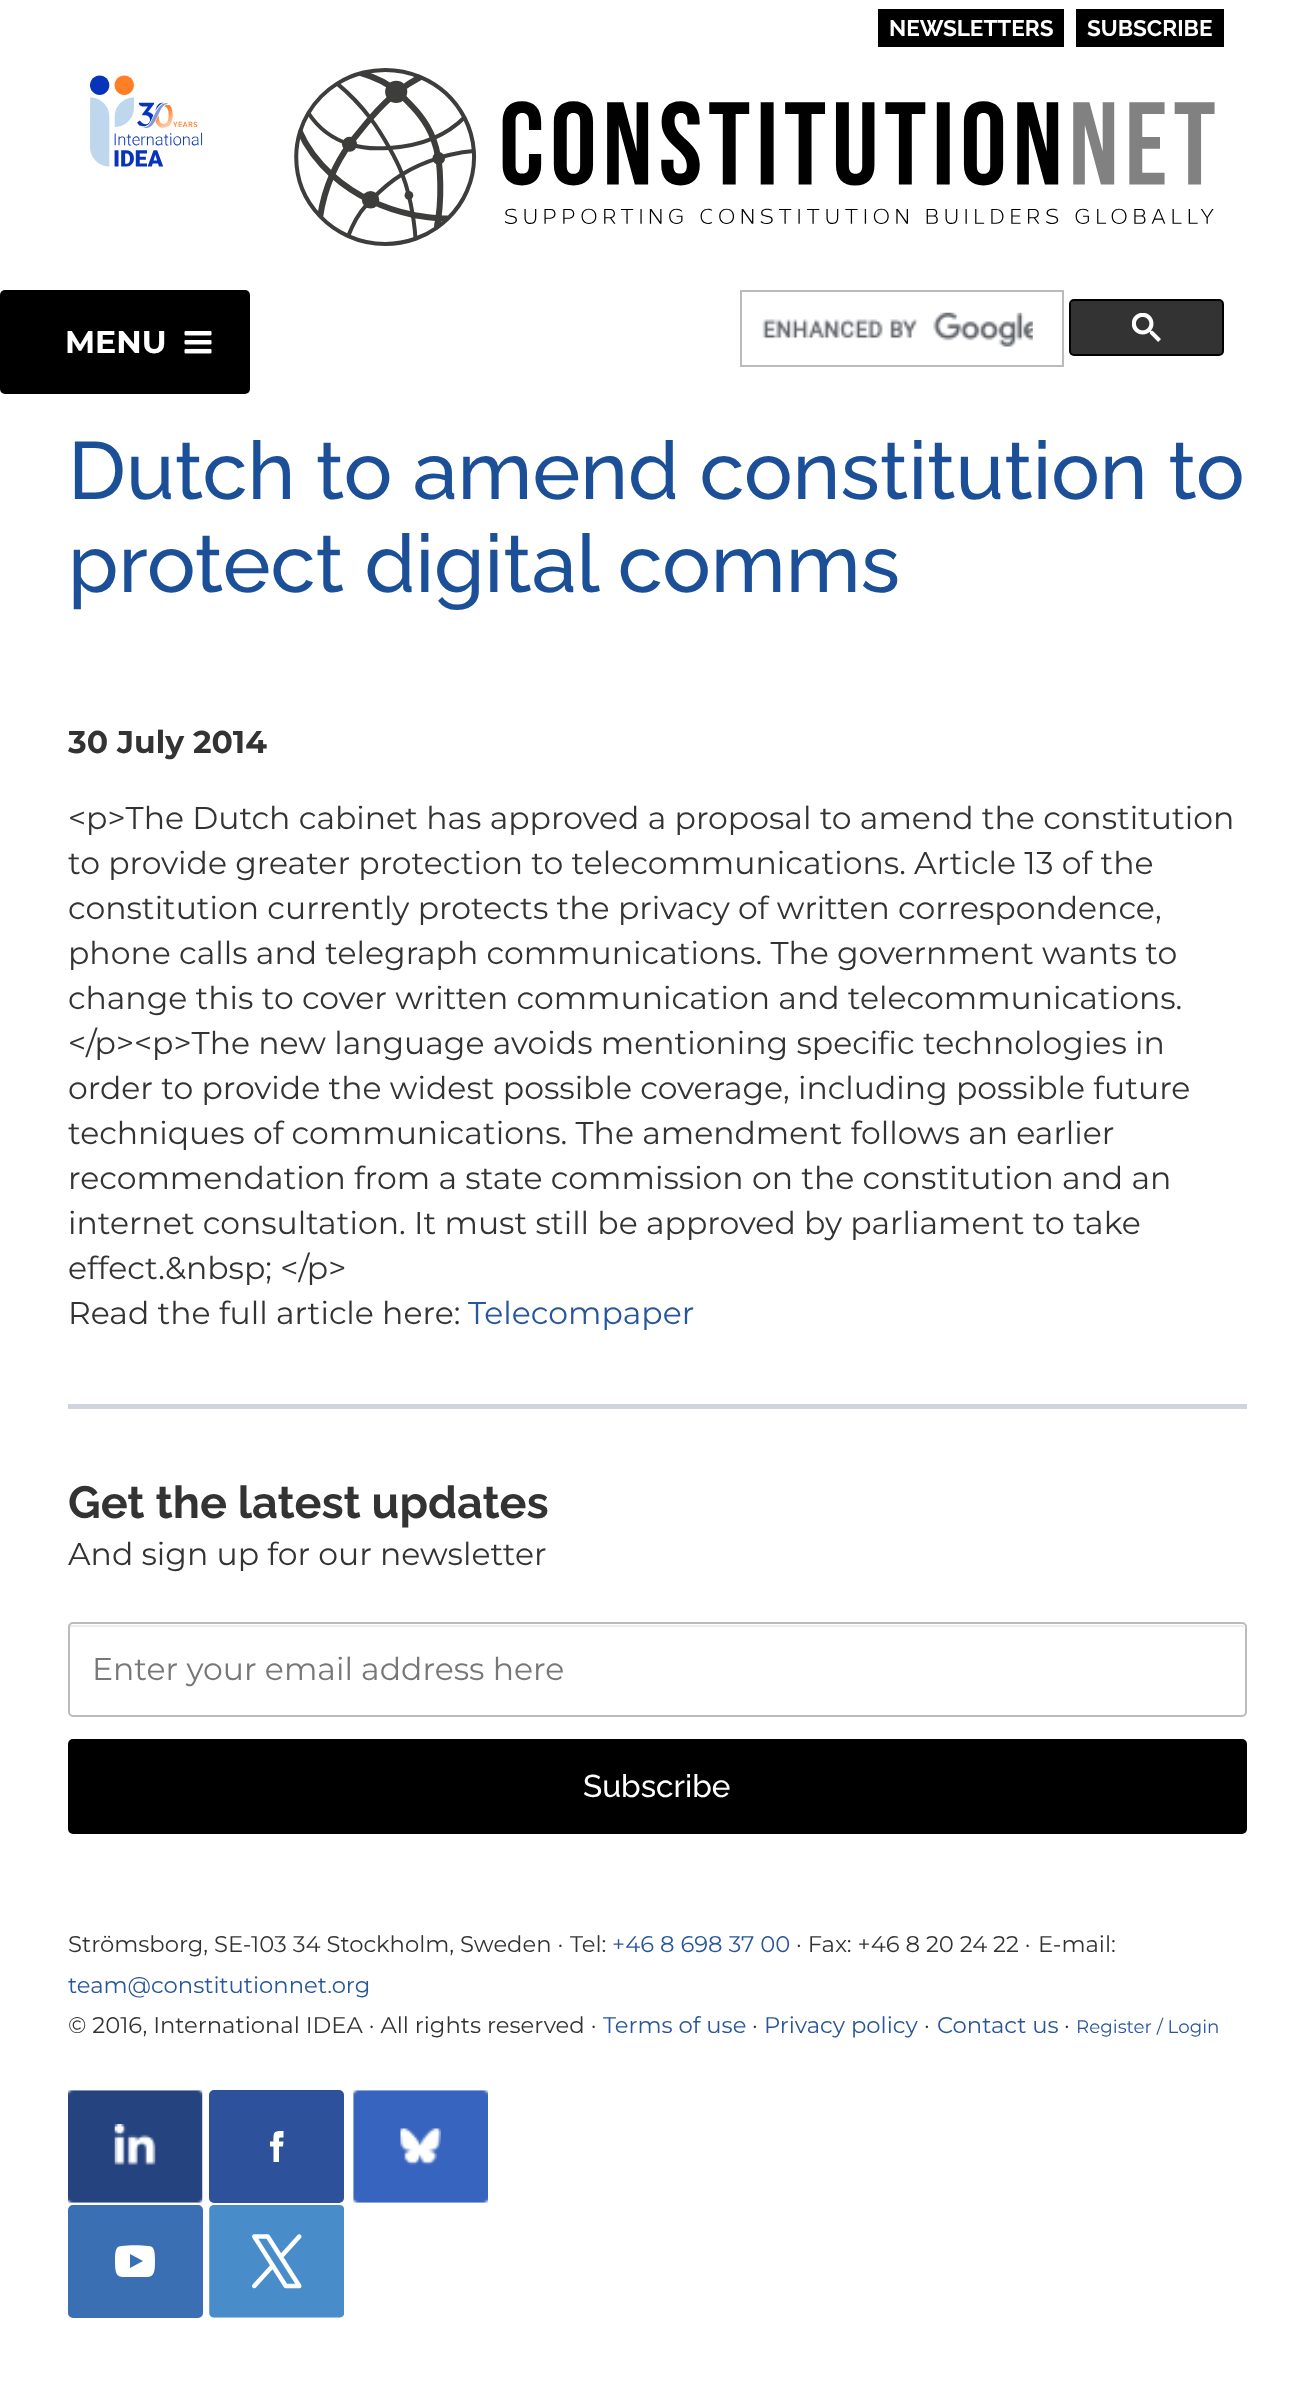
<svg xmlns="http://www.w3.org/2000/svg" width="1313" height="2384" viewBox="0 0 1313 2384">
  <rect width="100%" height="100%" fill="#ffffff"/>
  <rect x="878" y="9" width="186" height="38" fill="#000000"/>
  <text x="889" y="36" font-family="Raleway" font-size="22.5" font-weight="bold" fill="#ffffff">NEWSLETTERS</text>
  <rect x="1076" y="9" width="148" height="38" fill="#000000"/>
  <text x="1087" y="36" font-family="Raleway" font-size="22.5" font-weight="bold" fill="#ffffff">SUBSCRIBE</text>
  <image x="90" y="75" width="113" height="92" href="img1.png"/>
  <image x="294" y="68" width="921" height="178" href="img2.png"/>
  <rect x="0" y="290" width="250" height="104" rx="5" fill="#000000"/>
  <text x="65" y="353" font-family="Montserrat" font-size="31.5" font-weight="bold" fill="#ffffff">MENU</text>
  <image x="184" y="331" width="28" height="23" href="img3.png"/>
  <rect x="741" y="291" width="322" height="75" fill="none" stroke="#bbbbbb" stroke-width="2"/>
  <image x="762" y="312" width="271" height="35" href="img4.png"/>
  <rect x="1070" y="300" width="153" height="55" rx="4" fill="#333333" stroke="#000000" stroke-width="2"/>
  <image x="1132" y="313" width="29" height="29" href="img5.png"/>
  <text x="68" y="499" font-family="Raleway" font-size="81" font-weight="500" fill="#1b5099">Dutch to amend constitution to</text>
  <text x="68" y="592" font-family="Raleway" font-size="81" font-weight="500" fill="#1b5099">protect digital comms</text>
  <text x="68" y="753" font-family="Montserrat" font-size="31.5" font-weight="bold" fill="#333333">30 July 2014</text>
  <text x="68" y="829" font-family="Montserrat" font-size="31.5" fill="#333333">&lt;p&gt;The Dutch cabinet has approved a proposal to amend the constitution</text>
  <text x="68" y="874" font-family="Montserrat" font-size="31.5" fill="#333333">to provide greater protection to telecommunications. Article 13 of the</text>
  <text x="68" y="919" font-family="Montserrat" font-size="31.5" fill="#333333">constitution currently protects the privacy of written correspondence,</text>
  <text x="68" y="964" font-family="Montserrat" font-size="31.5" fill="#333333">phone calls and telegraph communications. The government wants to</text>
  <text x="68" y="1009" font-family="Montserrat" font-size="31.5" fill="#333333">change this to cover written communication and telecommunications.</text>
  <text x="68" y="1054" font-family="Montserrat" font-size="31.5" fill="#333333">&lt;/p&gt;&lt;p&gt;The new language avoids mentioning specific technologies in</text>
  <text x="68" y="1099" font-family="Montserrat" font-size="31.5" fill="#333333">order to provide the widest possible coverage, including possible future</text>
  <text x="68" y="1144" font-family="Montserrat" font-size="31.5" fill="#333333">techniques of communications. The amendment follows an earlier</text>
  <text x="68" y="1189" font-family="Montserrat" font-size="31.5" fill="#333333">recommendation from a state commission on the constitution and an</text>
  <text x="68" y="1234" font-family="Montserrat" font-size="31.5" fill="#333333">internet consultation. It must still be approved by parliament to take</text>
  <text x="68" y="1279" font-family="Montserrat" font-size="31.5" fill="#333333">effect.&amp;nbsp; &lt;/p&gt;</text>
  <text x="68" y="1324" font-family="Montserrat" font-size="31.5" fill="#333333">Read the full article here:</text>
  <text x="468" y="1324" font-family="Montserrat" font-size="31.5" fill="#28569c">Telecompaper</text>
  <rect x="68" y="1404" width="1179" height="5" fill="#d0d5dd"/>
  <text x="68" y="1518" font-family="Raleway" font-size="45" font-weight="bold" fill="#333333">Get the latest updates</text>
  <text x="68" y="1565" font-family="Montserrat" font-size="31.5" fill="#333333">And sign up for our newsletter</text>
  <path d="M72 1627H1242C1243 1627 1244 1628 1244 1629C1244 1627 1244 1625 1242 1625H71L70 1626V1629C70 1628 71 1627 72 1627Z" fill="#ececec"/>
  <rect x="69" y="1623" width="1177" height="93" rx="4" fill="none" stroke="#bbbbbb" stroke-width="2"/>
  <text x="92" y="1680" font-family="Montserrat" font-size="31.5" fill="#777777">Enter your email address here</text>
  <rect x="68" y="1739" width="1179" height="95" rx="5" fill="#000000"/>
  <text x="583" y="1797" font-family="Raleway" font-size="31.5" font-weight="500" fill="#ffffff">Subscribe</text>
  <text x="68" y="1952" font-family="Montserrat" font-size="22.7" fill="#333333">Strömsborg, SE-103 34 Stockholm, Sweden ·</text>
  <text x="570" y="1952" font-family="Montserrat" font-size="22.7" fill="#333333">Tel:</text>
  <text x="612" y="1952" font-family="Montserrat" font-size="22.7" fill="#28569c">+46 8 698 37 00</text>
  <text x="796" y="1952" font-family="Montserrat" font-size="22.7" fill="#333333">· Fax: +46 8 20 24 22 ·</text>
  <text x="1038" y="1952" font-family="Montserrat" font-size="22.7" fill="#333333">E-mail:</text>
  <text x="68" y="1993" font-family="Montserrat" font-size="22.7" fill="#28569c">team@constitutionnet.org</text>
  <text x="68" y="2033" font-family="Montserrat" font-size="22.7" fill="#333333">© 2016, International IDEA · All rights reserved ·</text>
  <text x="603" y="2033" font-family="Montserrat" font-size="22.7" fill="#28569c">Terms of use</text>
  <text x="752" y="2033" font-family="Montserrat" font-size="22.7" fill="#333333">·</text>
  <text x="764" y="2033" font-family="Montserrat" font-size="22.7" fill="#28569c">Privacy policy</text>
  <text x="924" y="2033" font-family="Montserrat" font-size="22.7" fill="#333333">·</text>
  <text x="937" y="2033" font-family="Montserrat" font-size="22.7" fill="#28569c">Contact us</text>
  <text x="1064" y="2033" font-family="Montserrat" font-size="22.7" fill="#333333">·</text>
  <text x="1076" y="2033" font-family="Montserrat" font-size="18.25" fill="#28569c">Register / Login</text>
  <image x="68" y="2090" width="135" height="113" href="img6.png"/>
  <rect x="209" y="2090" width="135" height="113" rx="5" fill="#2d519b"/>
  <image x="353" y="2090" width="135" height="113" href="img7.png"/>
  <path d="M273.5 2141.5H270V2146.5H273.5V2162H279V2146.5H283L283.5 2141.5H279C279 2136.5 279 2137.5 283.5 2137.5V2131C273.5 2131 273.5 2131.5 273.5 2141.5Z" fill="#ffffff" fill-rule="evenodd"/>
  <rect x="68" y="2205" width="135" height="113" rx="5" fill="#3b6fb3"/>
  <image x="209" y="2205" width="135" height="113" href="img8.png"/>
  <path d="M148 2246C142 2245 128 2245 122 2246C116 2246 115 2250 115 2261C115 2272 116 2276 122 2277C128 2277 142 2277 148 2277C154 2276 155 2272 155 2261C155 2250 154 2246 148 2246ZM130 2268V2254L143 2261Z" fill="#ffffff"/>
</svg>
